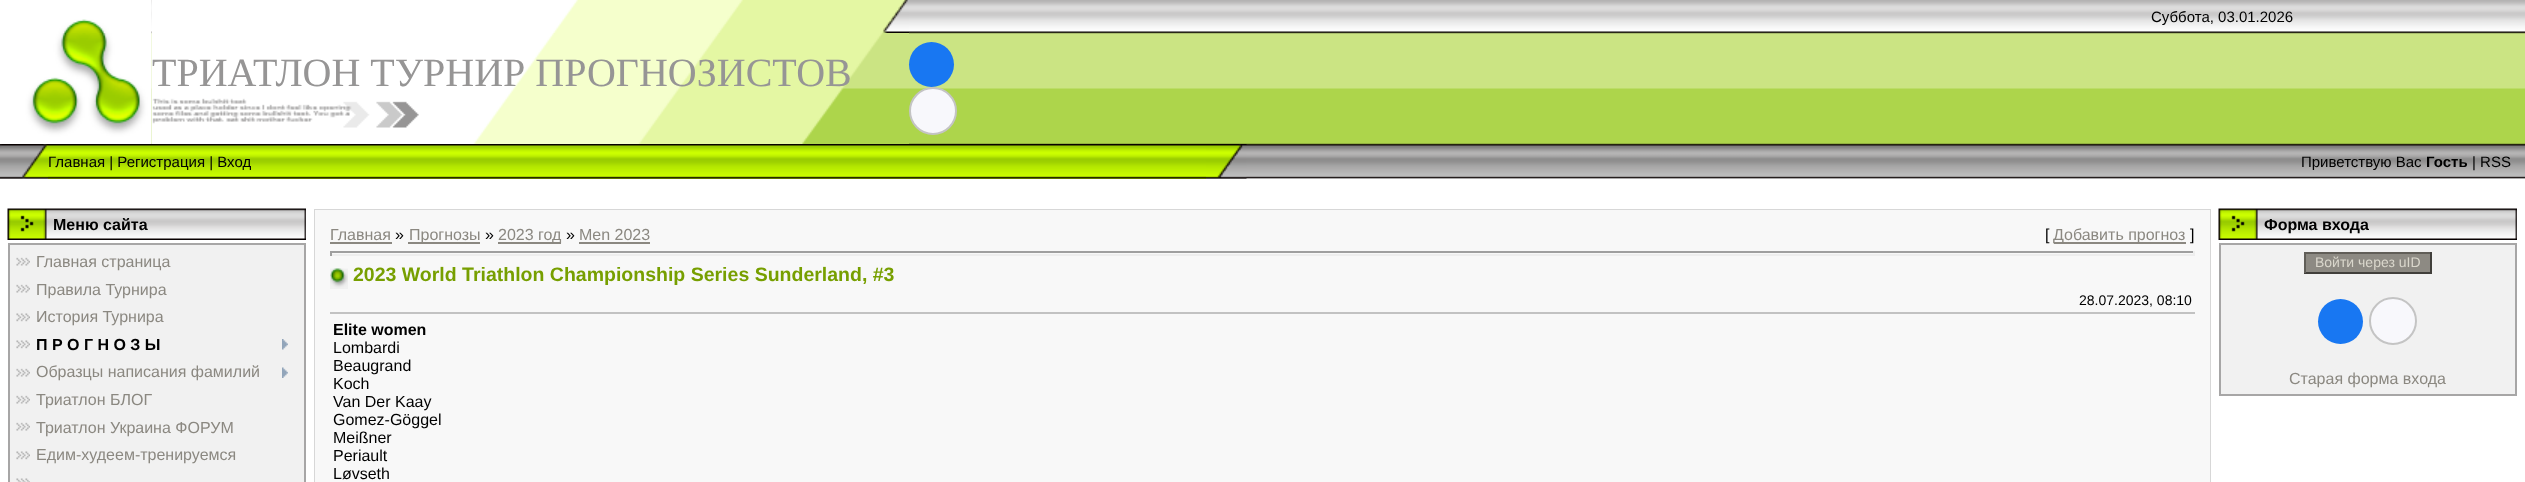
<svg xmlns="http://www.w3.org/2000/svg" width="2525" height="482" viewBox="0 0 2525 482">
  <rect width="100%" height="100%" fill="#ffffff"/>
  <image x="0" y="0" width="2525" height="179" href="img1.png"/>
  <image x="0" y="0" width="152" height="33" href="img2.png"/>
  <image x="151" y="0" width="758" height="33" href="img3.png"/>
  <text x="2151" y="22" font-family="Liberation Sans" font-size="15" fill="#000000">Суббота, 03.01.2026</text>
  <image x="151" y="33" width="758" height="111" href="img5.png"/>
  <image x="0" y="33" width="152" height="111" href="img4.png"/>
  <text x="152" y="86" font-family="Liberation Serif" font-size="40" fill="#969595">ТРИАТЛОН ТУРНИР ПРОГНОЗИСТОВ</text>
  <circle cx="931.5" cy="64.5" r="22.5" fill="#1877f2"/>
  <circle cx="933" cy="111" r="23" fill="#f8f8fc" stroke="#c4c4c4" stroke-width="2"/>
  <image x="0" y="144" width="48" height="35" href="img6.png"/>
  <rect x="48" y="178" width="1158" height="1" fill="#b0e300"/>
  <image x="48" y="144" width="1158" height="35" href="img7.png"/>
  <text x="48" y="167" font-family="Liberation Sans" font-size="15" fill="#000000">Главная | Регистрация | Вход</text>
  <image x="1206" y="144" width="41" height="35" href="img8.png"/>
  <text x="2301" y="167" font-family="Liberation Sans" font-size="15" fill="#000000">Приветствую Вас</text>
  <text x="2426" y="167" font-family="Liberation Sans" font-size="15" font-weight="bold" fill="#000000">Гость</text>
  <text x="2472" y="167" font-family="Liberation Sans" font-size="15" fill="#000000">| RSS</text>
  <image x="7" y="208" width="299" height="32" href="img9.png"/>
  <text x="53" y="230" font-family="Liberation Sans" font-size="16" font-weight="bold" fill="#000000">Меню сайта</text>
  <rect x="9" y="244" width="296" height="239" fill="#f1f1f1" stroke="#a7a6a6" stroke-width="2"/>
  <image x="16" y="257" width="14" height="9" href="img10.png"/>
  <text x="36" y="267" font-family="Liberation Sans" font-size="16" fill="#8b8881">Главная страница</text>
  <image x="16" y="284" width="14" height="9" href="img10.png"/>
  <text x="36" y="295" font-family="Liberation Sans" font-size="16" fill="#8b8881">Правила Турнира</text>
  <image x="16" y="313" width="14" height="9" href="img11.png"/>
  <text x="36" y="322" font-family="Liberation Sans" font-size="16" fill="#8b8881">История Турнира</text>
  <image x="16" y="340" width="14" height="9" href="img11.png"/>
  <text x="36" y="350" font-family="Liberation Sans" font-size="16" font-weight="bold" fill="#000000">П Р О Г Н О З Ы</text>
  <image x="282" y="339" width="6" height="11" href="img12.png"/>
  <image x="16" y="368" width="14" height="9" href="img10.png"/>
  <text x="36" y="377" font-family="Liberation Sans" font-size="16" fill="#8b8881">Образцы написания фамилий</text>
  <image x="282" y="367" width="6" height="11" href="img13.png"/>
  <image x="16" y="395" width="14" height="9" href="img10.png"/>
  <text x="36" y="405" font-family="Liberation Sans" font-size="16" fill="#8b8881">Триатлон БЛОГ</text>
  <image x="16" y="422" width="14" height="9" href="img10.png"/>
  <text x="36" y="433" font-family="Liberation Sans" font-size="16" fill="#8b8881">Триатлон Украина ФОРУМ</text>
  <image x="16" y="451" width="14" height="9" href="img11.png"/>
  <text x="36" y="460" font-family="Liberation Sans" font-size="16" fill="#8b8881">Едим-худеем-тренируемся</text>
  <image x="16" y="478" width="14" height="4" href="img14.png"/>
  <rect x="315" y="210" width="1895" height="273" fill="none" stroke="#d7d7d7" stroke-width="2"/>
  <rect x="315" y="210" width="1895" height="272" fill="#f8f8f8"/>
  <text x="330" y="240" font-family="Liberation Sans" font-size="16" fill="#8b8881">Главная</text>
  <rect x="330" y="242" width="62" height="2" fill="#8b8881"/>
  <text x="395" y="240" font-family="Liberation Sans" font-size="16" fill="#000000">»</text>
  <rect x="408" y="242" width="72" height="2" fill="#8b8881"/>
  <text x="409" y="240" font-family="Liberation Sans" font-size="16" fill="#8b8881">Прогнозы</text>
  <text x="485" y="240" font-family="Liberation Sans" font-size="16" fill="#000000">»</text>
  <rect x="498" y="242" width="63" height="2" fill="#8b8881"/>
  <text x="498" y="240" font-family="Liberation Sans" font-size="16" fill="#8b8881">2023 год</text>
  <text x="566" y="240" font-family="Liberation Sans" font-size="16" fill="#000000">»</text>
  <text x="579" y="240" font-family="Liberation Sans" font-size="16" fill="#8b8881">Men 2023</text>
  <rect x="579" y="242" width="71" height="2" fill="#8b8881"/>
  <text x="2045" y="240" font-family="Liberation Sans" font-size="16" fill="#000000">[</text>
  <rect x="2054" y="242" width="132" height="2" fill="#8b8881"/>
  <text x="2053" y="240" font-family="Liberation Sans" font-size="16" fill="#8b8881">Добавить прогноз</text>
  <text x="2190" y="240" font-family="Liberation Sans" font-size="16" fill="#000000">]</text>
  <rect x="330" y="251" width="1865" height="2" fill="#9f9f9f"/>
  <rect x="2193" y="251" width="2" height="5" fill="#eeeeee"/>
  <rect x="330" y="254" width="1865" height="2" fill="#eeeeee"/>
  <rect x="330" y="251" width="2" height="5" fill="#9f9f9f"/>
  <image x="330" y="268" width="18" height="21" href="img15.png"/>
  <text x="353" y="281" font-family="Liberation Sans" font-size="19.5" font-weight="bold" fill="#779f00">2023 World Triathlon Championship Series Sunderland, #3</text>
  <text x="2079" y="305" font-family="Liberation Sans" font-size="14" fill="#000000">28.07.2023, 08:10</text>
  <rect x="330" y="312" width="1865" height="2" fill="#c2c2c2"/>
  <text x="333" y="335" font-family="Liberation Sans" font-size="16" font-weight="bold" fill="#000000">Elite women</text>
  <text x="333" y="353" font-family="Liberation Sans" font-size="16" fill="#000000">Lombardi</text>
  <text x="333" y="371" font-family="Liberation Sans" font-size="16" fill="#000000">Beaugrand</text>
  <text x="333" y="389" font-family="Liberation Sans" font-size="16" fill="#000000">Koch</text>
  <text x="333" y="407" font-family="Liberation Sans" font-size="16" fill="#000000">Van Der Kaay</text>
  <text x="333" y="425" font-family="Liberation Sans" font-size="16" fill="#000000">Gomez-Göggel</text>
  <text x="333" y="443" font-family="Liberation Sans" font-size="16" fill="#000000">Meißner</text>
  <text x="333" y="461" font-family="Liberation Sans" font-size="16" fill="#000000">Periault</text>
  <text x="333" y="479" font-family="Liberation Sans" font-size="16" fill="#000000">Løvseth</text>
  <image x="2218" y="208" width="299" height="32" href="img16.png"/>
  <text x="2264" y="230" font-family="Liberation Sans" font-size="16" font-weight="bold" fill="#000000">Форма входа</text>
  <rect x="2220" y="244" width="296" height="151" fill="#f1f1f1" stroke="#a7a6a6" stroke-width="2"/>
  <rect x="2306" y="254" width="124" height="18" fill="#8d8a83"/>
  <rect x="2304" y="252" width="128" height="2" fill="#615e58"/>
  <rect x="2430" y="252" width="2" height="21" fill="#413f3b"/>
  <rect x="2304" y="272" width="128" height="2" fill="#413f3b"/>
  <rect x="2304" y="252" width="2" height="21" fill="#615e58"/>
  <text x="2315" y="267" font-family="Liberation Sans" font-size="14" fill="#dad7cc">Войти через uID</text>
  <circle cx="2340.5" cy="321.5" r="22.5" fill="#1877f2"/>
  <circle cx="2393" cy="321" r="23" fill="#f8f8fc" stroke="#c4c4c4" stroke-width="2"/>
  <text x="2289" y="384" font-family="Liberation Sans" font-size="16" fill="#8b8881">Старая форма входа</text>
</svg>
